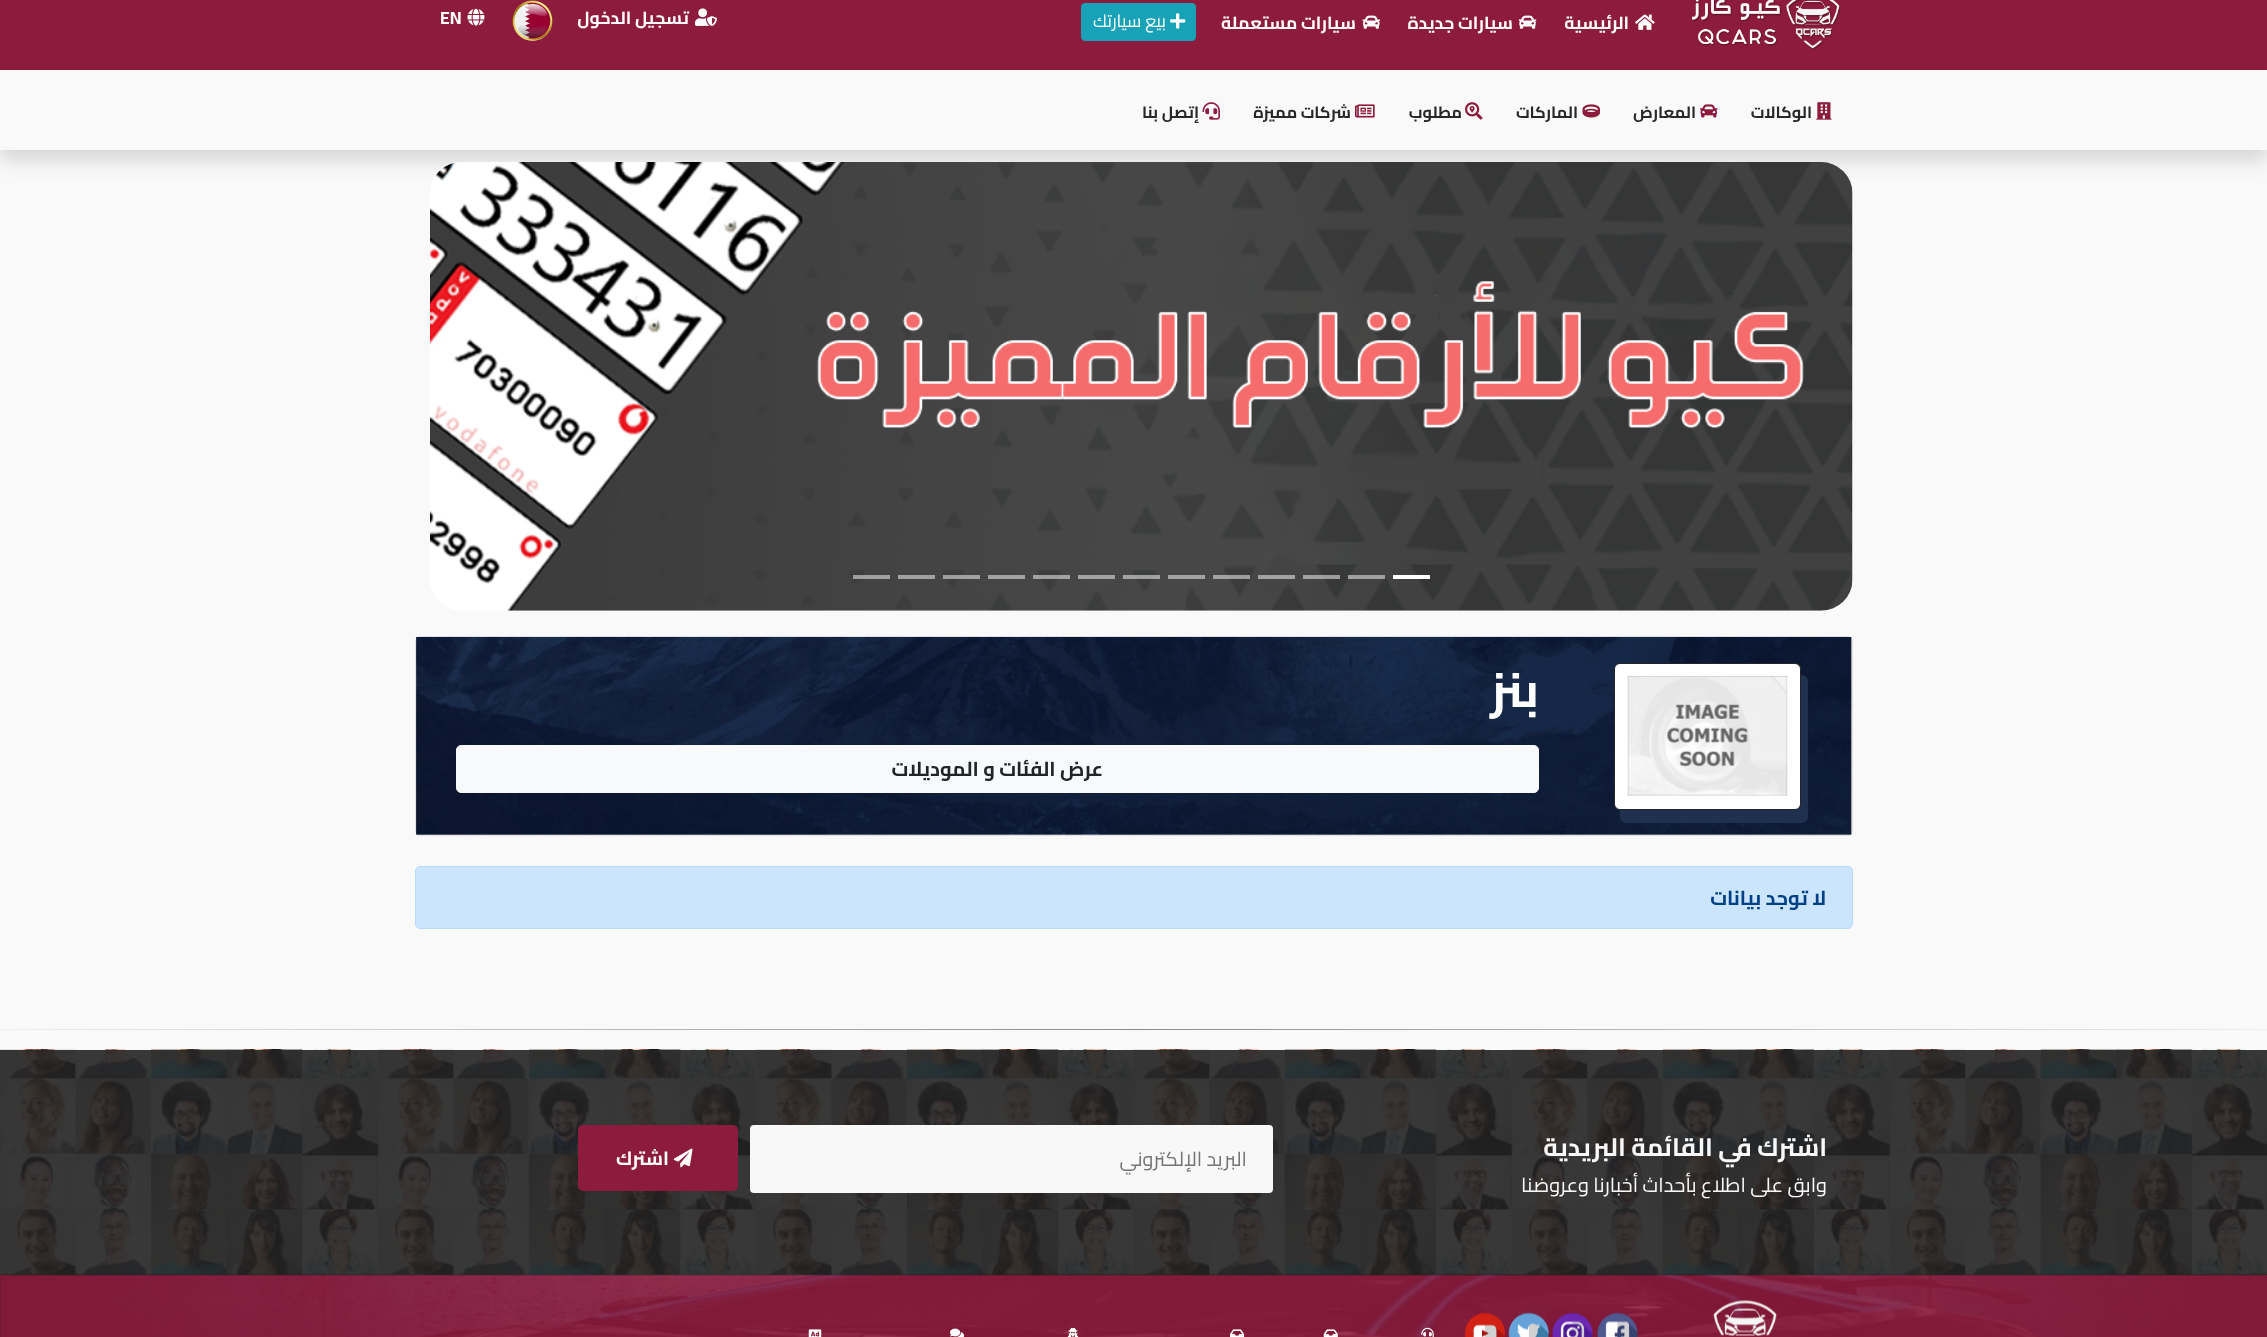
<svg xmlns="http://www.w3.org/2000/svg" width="2267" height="1337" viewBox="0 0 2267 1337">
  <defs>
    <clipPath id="clip1"><path d="M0 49H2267V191H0ZM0 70H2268V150H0Z" clip-rule="evenodd"/></clipPath>
    <filter id="blur1" x="-50%" y="-200%" width="200%" height="500%"><feGaussianBlur stdDeviation="10"/></filter>
    <linearGradient id="g1" gradientUnits="userSpaceOnUse" x1="0" y1="1029" x2="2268" y2="1029"><stop offset="0" stop-color="#f0f0f0"/><stop offset="0.5" stop-color="#8c8b8b"/><stop offset="1" stop-color="#f0f0f0"/></linearGradient>
  </defs>
  <rect width="100%" height="100%" fill="#f9f9f9"/>
  <rect x="0" y="0" width="2267" height="70" fill="#8d1b3d"/>
  <g clip-path="url(#clip1)">
    <rect x="0" y="80" width="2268" height="80" fill="#000000" fill-opacity="0.15" filter="url(#blur1)"/>
  </g>
  <image x="1692" y="0" width="148" height="50" href="img1.png"/>
  <image x="1635" y="14" width="20" height="16" href="img2.png"/>
  <text x="1629" y="29" font-family="Cairo" font-size="17.5" font-weight="bold" direction="rtl" fill="#ffffff">الرئيسية</text>
  <image x="1518" y="15" width="19" height="14" href="img3.png"/>
  <text x="1513" y="29" font-family="Cairo" font-size="17.5" font-weight="bold" direction="rtl" fill="#ffffff">سيارات جديدة</text>
  <image x="1362" y="15" width="18" height="14" href="img4.png"/>
  <text x="1356" y="29" font-family="Cairo" font-size="17.5" font-weight="bold" direction="rtl" fill="#ffffff">سيارات مستعملة</text>
  <rect x="1081.5" y="3.5" width="114" height="37" rx="3.5" fill="#17a2b8" stroke="#17a2b8"/>
  <image x="1170" y="13" width="16" height="16" href="img5.png"/>
  <text x="1166" y="27" font-family="Cairo" font-size="17.5" direction="rtl" fill="#ffffff">بيع سيارتك</text>
  <image x="695" y="8" width="22" height="18" href="img6.png"/>
  <text x="689" y="24" font-family="Cairo" font-size="17.5" font-weight="bold" direction="rtl" fill="#ffffff">تسجيل الدخول</text>
  <image x="512" y="0" width="41" height="41" href="img7.png"/>
  <image x="467" y="8" width="18" height="18" href="img8.png"/>
  <text x="440" y="24" font-family="Cairo" font-size="17.5" font-weight="bold" fill="#ffffff">EN</text>
  <image x="1816" y="102" width="16" height="18" href="img9.png"/>
  <text x="1812" y="118" font-family="Cairo" font-size="16.25" font-weight="bold" direction="rtl" fill="#282828">الوكالات</text>
  <image x="1700" y="104" width="18" height="14" href="img10.png"/>
  <text x="1696" y="118" font-family="Cairo" font-size="16.25" font-weight="bold" direction="rtl" fill="#282828">المعارض</text>
  <image x="1582" y="104" width="18" height="14" href="img11.png"/>
  <text x="1578" y="118" font-family="Cairo" font-size="16.25" font-weight="bold" direction="rtl" fill="#282828">الماركات</text>
  <image x="1465" y="102" width="18" height="18" href="img12.png"/>
  <text x="1462" y="118" font-family="Cairo" font-size="16.25" font-weight="bold" direction="rtl" fill="#282828">مطلوب</text>
  <image x="1355" y="104" width="20" height="14" href="img13.png"/>
  <text x="1351" y="118" font-family="Cairo" font-size="16.25" font-weight="bold" direction="rtl" fill="#282828">شركات مميزة</text>
  <image x="1202" y="102" width="18" height="18" href="img14.png"/>
  <text x="1199" y="118" font-family="Cairo" font-size="16.25" font-weight="bold" direction="rtl" fill="#282828">إتصل بنا</text>
  <image x="430" y="162" width="1423" height="449" href="img15.png"/>
  <rect x="1393" y="575" width="37" height="4" fill="#ffffff"/>
  <rect x="1348" y="575" width="37" height="4" fill="#ffffff" fill-opacity="0.5"/>
  <rect x="1303" y="575" width="37" height="4" fill="#ffffff" fill-opacity="0.5"/>
  <rect x="1258" y="575" width="37" height="4" fill="#a2a2a2"/>
  <rect x="1213" y="575" width="37" height="4" fill="#ffffff" fill-opacity="0.5"/>
  <rect x="1168" y="575" width="37" height="4" fill="#a3a3a3"/>
  <rect x="1123" y="575" width="37" height="4" fill="#ffffff" fill-opacity="0.5"/>
  <rect x="1078" y="575" width="37" height="4" fill="#a3a3a3"/>
  <rect x="1033" y="575" width="37" height="4" fill="#ffffff" fill-opacity="0.5"/>
  <rect x="988" y="575" width="37" height="4" fill="#a2a2a2"/>
  <rect x="943" y="575" width="37" height="4" fill="#ffffff" fill-opacity="0.5"/>
  <rect x="898" y="575" width="37" height="4" fill="#a1a1a1"/>
  <rect x="853" y="575" width="37" height="4" fill="#ffffff" fill-opacity="0.5"/>
  <rect x="415" y="636" width="1438" height="200" rx="5" fill="#ffffff"/>
  <rect x="415.5" y="636.5" width="1437" height="199" rx="4.5" fill="none" stroke="#000000" stroke-opacity="0.12"/>
  <image x="416" y="637" width="1436" height="198" href="img16.png"/>
  <path d="M1620 810V817C1620 820 1623 823 1626 823H1802C1805 823 1808 820 1808 817V681C1808 678 1805 675 1802 675H1801V804C1801 807 1798 810 1795 810Z" fill="#1f314f"/>
  <rect x="1614.5" y="663.5" width="186" height="146" rx="5.5" fill="#ffffff" stroke="#212529"/>
  <image x="1627" y="675" width="161" height="121" href="img17.png"/>
  <text x="1539" y="707" font-family="Cairo" font-size="48" font-weight="bold" direction="rtl" fill="#ffffff">بنز</text>
  <rect x="456.5" y="745.5" width="1082" height="47" rx="4.5" fill="#f8f9fa" stroke="#f8f9fa"/>
  <text x="1103" y="776" font-family="Cairo" font-size="20" font-weight="bold" direction="rtl" fill="#212529">عرض الفئات و الموديلات</text>
  <rect x="415.5" y="866.5" width="1437" height="62" rx="4.5" fill="#cce5ff" stroke="#b8daff"/>
  <text x="1826" y="905" font-family="Cairo" font-size="20" font-weight="bold" direction="rtl" fill="#004085">لا توجد بيانات</text>
  <rect x="0" y="1029" width="2267" height="1" fill="url(#g1)"/>
  <image x="0" y="1049" width="2267" height="226" href="img18.png"/>
  <image x="0" y="1274" width="2267" height="63" href="img20.png"/>
  <rect x="0" y="1050" width="2267" height="225" fill="#222222" fill-opacity="0.9"/>
  <text x="1827" y="1156" font-family="Cairo" font-size="25" font-weight="bold" direction="rtl" fill="#f8f8f8">اشترك في القائمة البريدية</text>
  <text x="1827" y="1192" font-family="Cairo" font-size="20" direction="rtl" fill="#f8f8f8">وابق على اطلاع بأحداث أخبارنا وعروضنا</text>
  <rect x="750" y="1125" width="523" height="68" rx="4" fill="#f8f8f8"/>
  <text x="1247" y="1166" font-family="Cairo" font-size="20" direction="rtl" fill="#757575">البريد الإلكتروني</text>
  <rect x="578" y="1125" width="160" height="66" rx="5" fill="#8d1b3d"/>
  <image x="673" y="1148" width="20" height="20" href="img19.png"/>
  <text x="669" y="1165" font-family="Cairo" font-size="19" font-weight="bold" direction="rtl" fill="#ffffff">اشترك</text>
  <rect x="0.5" y="1275.5" width="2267" height="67" rx="4.5" fill="none" stroke="#000000" stroke-opacity="0.12"/>
  <image x="1713" y="1300" width="64" height="36" href="img21.png"/>
  <image x="1597" y="1312" width="41" height="25" href="img22.png"/>
  <image x="1552" y="1312" width="41" height="25" href="img23.png"/>
  <image x="1508" y="1312" width="41" height="25" href="img24.png"/>
  <image x="1465" y="1312" width="40" height="25" href="img25.png"/>
  <image x="1421" y="1327" width="13" height="10" href="img26.png"/>
  <image x="1323" y="1329" width="15" height="8" href="img27.png"/>
  <image x="1230" y="1329" width="15" height="8" href="img28.png"/>
  <image x="1067" y="1327" width="12" height="10" href="img29.png"/>
  <image x="950" y="1328" width="15" height="9" href="img30.png"/>
  <image x="808" y="1329" width="14" height="8" href="img31.png"/>
</svg>
